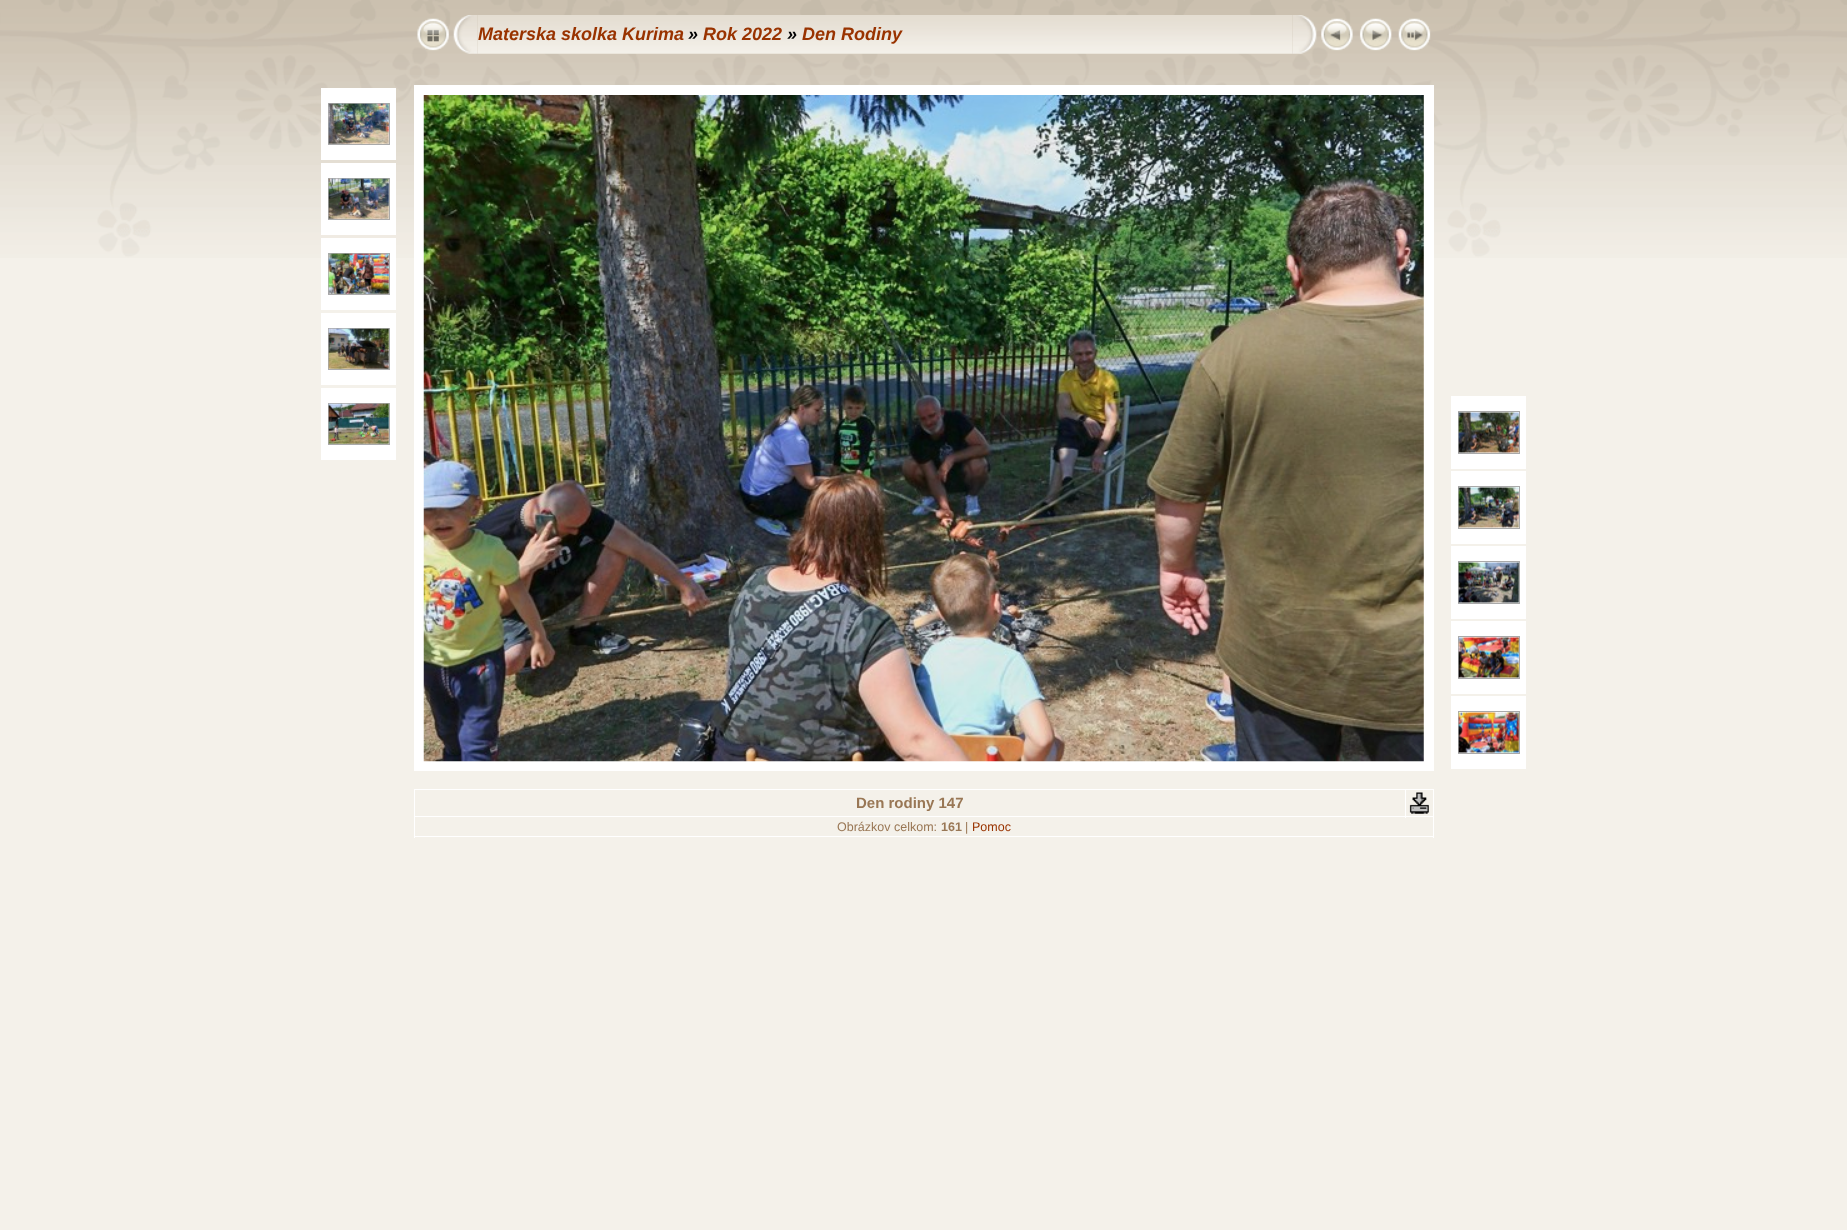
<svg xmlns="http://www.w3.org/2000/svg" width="1847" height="1230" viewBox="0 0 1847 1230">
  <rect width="100%" height="100%" fill="#f4f1ea"/>
  <image x="0" y="0" width="1847" height="258" href="img1.png"/>
  <image x="417" y="18" width="32" height="33" href="img2.png"/>
  <image x="477" y="15" width="816" height="39" href="img4.png"/>
  <image x="453" y="15" width="25" height="39" href="img3.png"/>
  <text x="478" y="40" font-family="Liberation Sans" font-size="18" font-weight="bold" font-style="italic" fill="#993300">Materska skolka Kurima</text>
  <text x="688" y="40" font-family="Liberation Sans" font-size="18" font-weight="bold" font-style="italic" fill="#000000">»</text>
  <text x="703" y="40" font-family="Liberation Sans" font-size="18" font-weight="bold" font-style="italic" fill="#993300">Rok 2022</text>
  <text x="787" y="40" font-family="Liberation Sans" font-size="18" font-weight="bold" font-style="italic" fill="#000000">»</text>
  <text x="802" y="40" font-family="Liberation Sans" font-size="18" font-weight="bold" font-style="italic" fill="#993300">Den Rodiny</text>
  <image x="1292" y="15" width="25" height="39" href="img5.png"/>
  <image x="1321" y="18" width="32" height="33" href="img6.png"/>
  <image x="1359" y="18" width="33" height="33" href="img7.png"/>
  <image x="1398" y="18" width="33" height="33" href="img8.png"/>
  <rect x="321" y="88" width="75" height="72" fill="#ffffff"/>
  <rect x="328.5" y="103.5" width="61" height="41" fill="none" stroke="#aaaaaa"/>
  <image x="328" y="103" width="61" height="41" href="img9.png"/>
  <rect x="321" y="163" width="75" height="72" fill="#ffffff"/>
  <rect x="328.5" y="178.5" width="61" height="41" fill="none" stroke="#aaaaaa"/>
  <image x="328" y="178" width="61" height="41" href="img10.png"/>
  <rect x="321" y="238" width="75" height="72" fill="#ffffff"/>
  <rect x="328.5" y="253.5" width="61" height="41" fill="none" stroke="#aaaaaa"/>
  <image x="328" y="253" width="61" height="41" href="img11.png"/>
  <rect x="321" y="313" width="75" height="72" fill="#ffffff"/>
  <rect x="328.5" y="328.5" width="61" height="41" fill="none" stroke="#aaaaaa"/>
  <image x="328" y="328" width="61" height="41" href="img12.png"/>
  <rect x="321" y="388" width="75" height="72" fill="#ffffff"/>
  <rect x="328.5" y="403.5" width="61" height="41" fill="none" stroke="#aaaaaa"/>
  <image x="328" y="403" width="61" height="41" href="img13.png"/>
  <rect x="419" y="90" width="1010" height="676" fill="none" stroke="#ffffff" stroke-width="10"/>
  <image x="423" y="95" width="1001" height="667" href="img14.png"/>
  <rect x="1451" y="396" width="75" height="73" fill="#ffffff"/>
  <rect x="1458.5" y="411.5" width="61" height="42" fill="none" stroke="#aaaaaa"/>
  <image x="1458" y="412" width="61" height="41" href="img15.png"/>
  <rect x="1451" y="471" width="75" height="73" fill="#ffffff"/>
  <rect x="1458.5" y="486.5" width="61" height="42" fill="none" stroke="#aaaaaa"/>
  <image x="1458" y="487" width="61" height="41" href="img16.png"/>
  <rect x="1451" y="546" width="75" height="73" fill="#ffffff"/>
  <rect x="1458.5" y="561.5" width="61" height="42" fill="none" stroke="#aaaaaa"/>
  <image x="1458" y="562" width="61" height="41" href="img17.png"/>
  <rect x="1451" y="621" width="75" height="73" fill="#ffffff"/>
  <rect x="1458.5" y="636.5" width="61" height="42" fill="none" stroke="#aaaaaa"/>
  <image x="1458" y="637" width="61" height="41" href="img18.png"/>
  <rect x="1451" y="696" width="75" height="73" fill="#ffffff"/>
  <rect x="1458.5" y="711.5" width="61" height="42" fill="none" stroke="#aaaaaa"/>
  <image x="1458" y="712" width="61" height="41" href="img19.png"/>
  <rect x="414" y="789" width="1020" height="1" fill="#ffffff"/>
  <rect x="1433" y="789" width="1" height="49" fill="#ffffff"/>
  <rect x="414" y="836" width="1020" height="1" fill="#ffffff"/>
  <rect x="414" y="789" width="1" height="49" fill="#ffffff"/>
  <text x="856" y="808" font-family="Liberation Sans" font-size="15" font-weight="bold" fill="#997755">Den rodiny 147</text>
  <rect x="414" y="816" width="1020" height="1" fill="#ffffff"/>
  <rect x="1405" y="789" width="1" height="29" fill="#ffffff"/>
  <image x="1409" y="792" width="20" height="22" href="img20.png"/>
  <text x="837" y="831" font-family="Liberation Sans" font-size="12.5" fill="#997755">Obrázkov celkom:</text>
  <text x="941" y="831" font-family="Liberation Sans" font-size="12.5" font-weight="bold" fill="#997755">161</text>
  <text x="965" y="831" font-family="Liberation Sans" font-size="12.5" fill="#997755">|</text>
  <text x="972" y="831" font-family="Liberation Sans" font-size="12.5" fill="#993300">Pomoc</text>
</svg>
